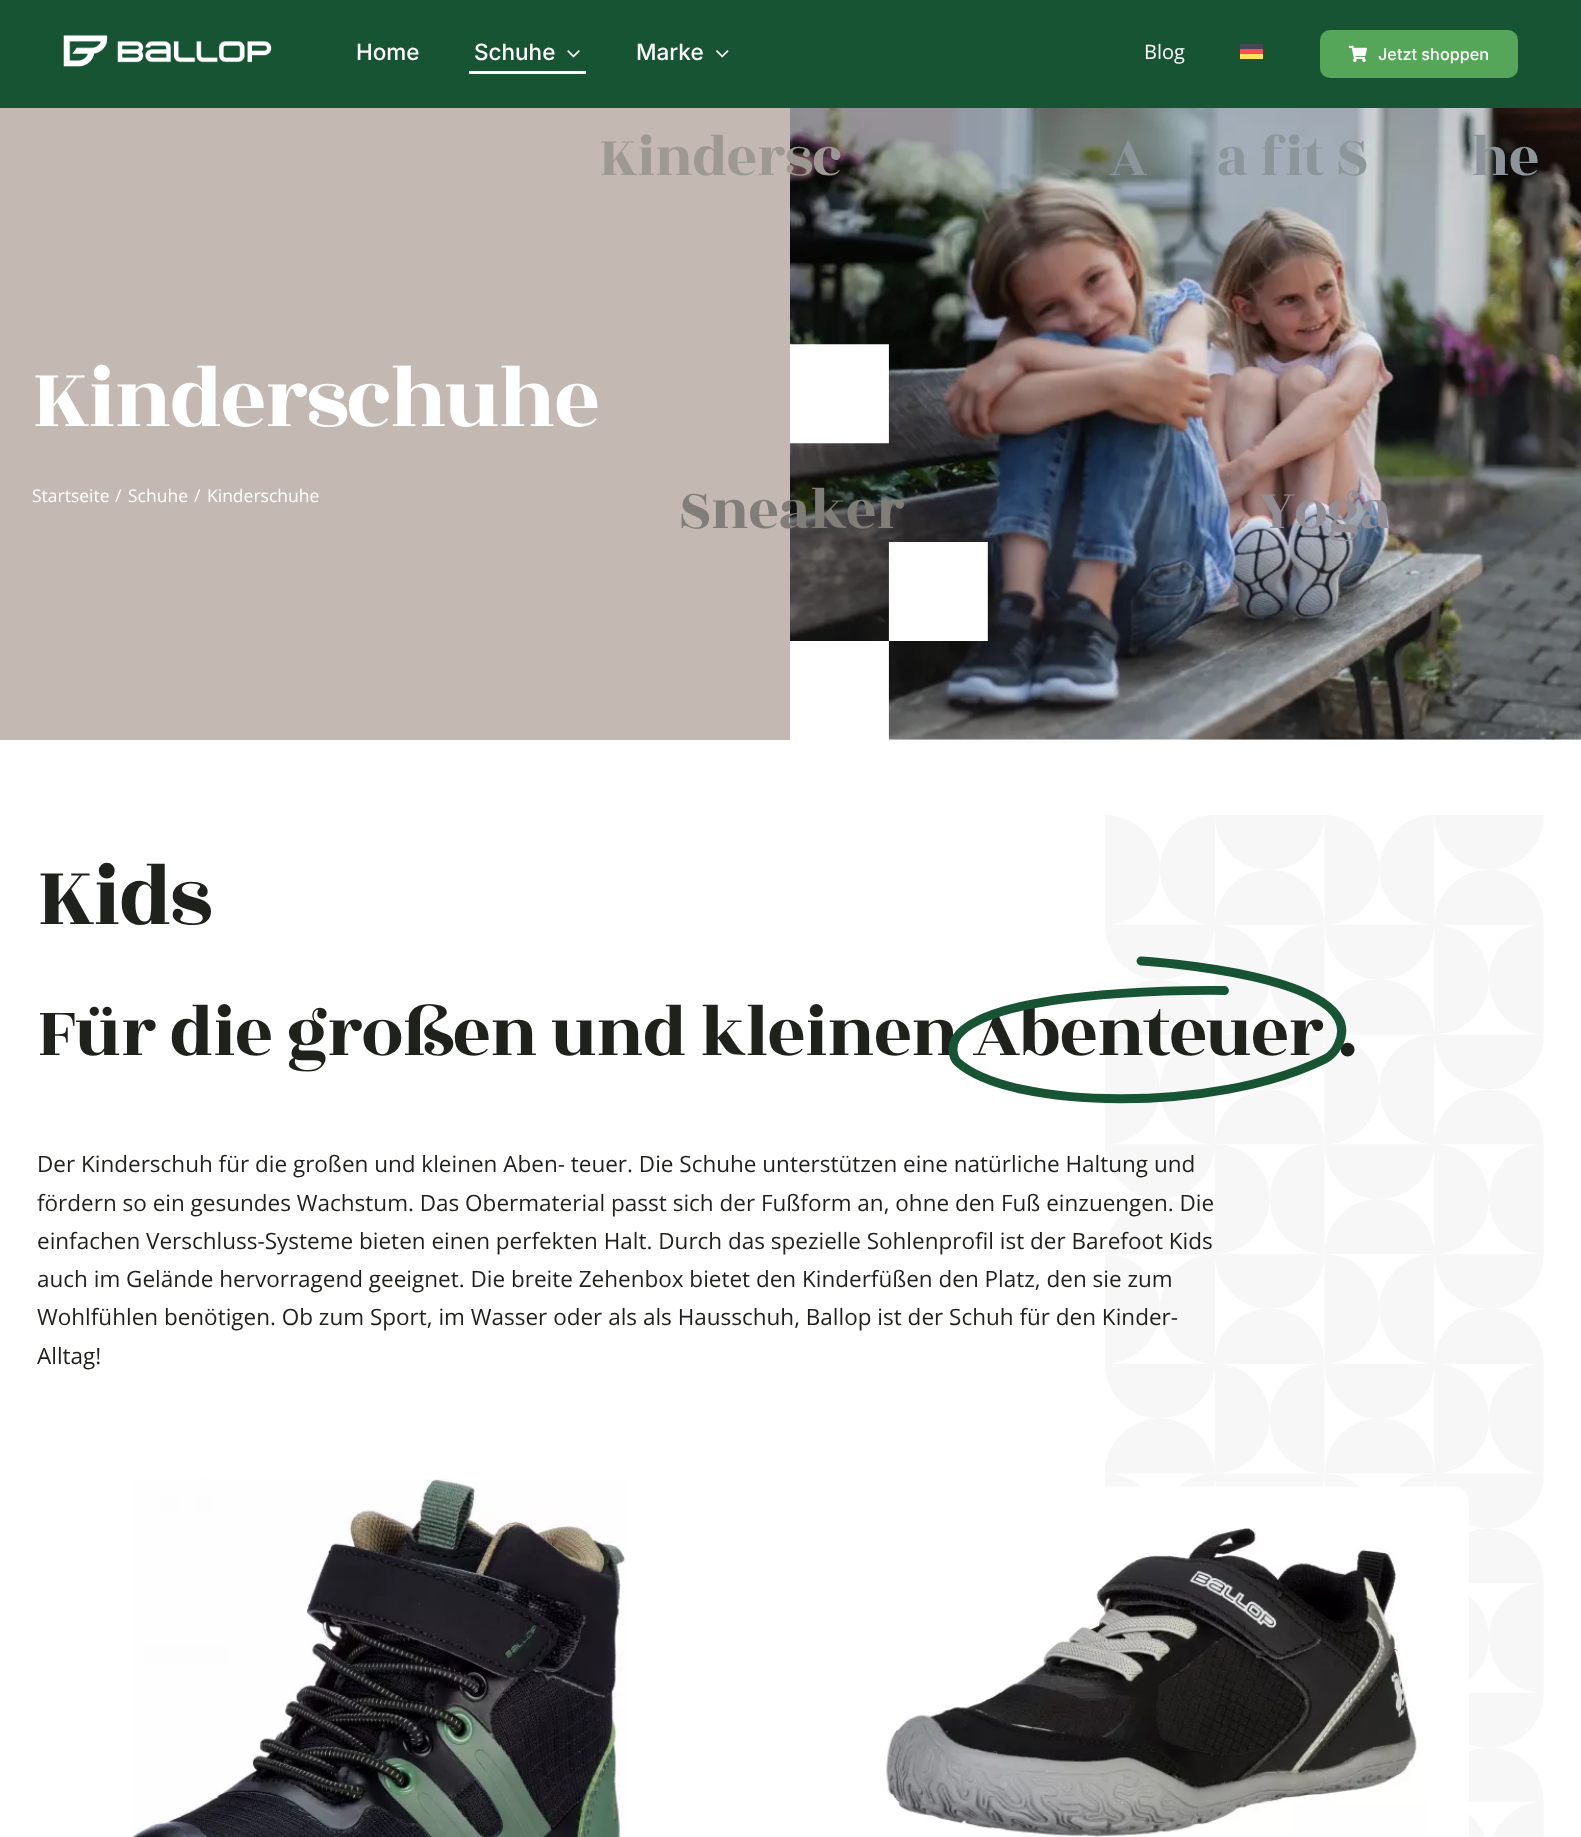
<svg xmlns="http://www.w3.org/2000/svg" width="1581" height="1837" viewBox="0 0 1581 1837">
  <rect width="100%" height="100%" fill="#ffffff"/>
  <rect x="0" y="108" width="790" height="632" fill="#c4b9b2"/>
  <text x="32" y="426" font-family="Rozha One" font-size="90" letter-spacing="-2.25" fill="#ffffff">Kinderschuhe</text>
  <text x="32" y="502" font-family="Open Sans" font-size="17.5" fill="#ffffff">Startseite</text>
  <text x="115" y="502" font-family="Open Sans" font-size="17.5" fill="#ffffff">/</text>
  <text x="128" y="502" font-family="Open Sans" font-size="17.5" fill="#ffffff">Schuhe</text>
  <text x="194" y="502" font-family="Open Sans" font-size="17.5" fill="#ffffff">/</text>
  <text x="207" y="502" font-family="Open Sans" font-size="17.5" fill="#ffffff">Kinderschuhe</text>
  <image x="790" y="108" width="791" height="632" href="img1.png"/>
  <rect x="0" y="0" width="1581" height="108" fill="#175434"/>
  <image x="63" y="35" width="209" height="32" href="img2.png"/>
  <text x="356" y="60" font-family="Inter" font-size="22.5" font-weight="500" fill="#ffffff">Home</text>
  <text x="474" y="60" font-family="Inter" font-size="22.5" font-weight="500" fill="#ffffff">Schuhe</text>
  <image x="567" y="50" width="13" height="8" href="img3.png"/>
  <rect x="469" y="71" width="117" height="3" fill="#ffffff"/>
  <text x="599" y="175" font-family="Rozha One" font-size="60" letter-spacing="-1" fill="#9e9893">Kindersc</text>
  <text x="1109" y="175" font-family="Rozha One" font-size="60" letter-spacing="-1" fill="#8c9599">A</text>
  <text x="1216" y="175" font-family="Rozha One" font-size="60" letter-spacing="-1" fill="#8c9599">a fit S</text>
  <text x="1471" y="175" font-family="Rozha One" font-size="60" letter-spacing="-1" fill="#8c9599">he</text>
  <text x="678" y="528" font-family="Rozha One" font-size="60" letter-spacing="-1" fill="#817d78">Sneaker</text>
  <text x="1258" y="528" font-family="Rozha One" font-size="60" letter-spacing="-1" fill="#938d95">Yoga</text>
  <text x="636" y="60" font-family="Inter" font-size="22.5" font-weight="500" fill="#ffffff">Marke</text>
  <image x="716" y="50" width="13" height="8" href="img4.png"/>
  <text x="1144" y="59" font-family="Open Sans" font-size="20" fill="#ffffff">Blog</text>
  <rect x="1240" y="44" width="23" height="5" fill="#464655"/>
  <rect x="1240" y="49" width="23" height="5" fill="#ff4b55"/>
  <rect x="1240" y="54" width="23" height="5" fill="#ffe15a"/>
  <rect x="1320" y="30" width="198" height="48" rx="10" fill="#56a65a"/>
  <image x="1348" y="45" width="19" height="17" href="img5.png"/>
  <text x="1378" y="60" font-family="Inter" font-size="16.25" font-weight="500" fill="#ffffff">Jetzt shoppen</text>
  <image x="1105" y="815" width="439" height="1022" href="img6.png"/>
  <text x="37" y="924" font-family="Rozha One" font-size="90" letter-spacing="-2.25" fill="#1f211c">Kids</text>
  <text x="37" y="1055" font-family="Rozha One" font-size="75" letter-spacing="-1.5" fill="#1f211c">Für die großen und kleinen Abenteuer</text>
  <text x="1338" y="1055" font-family="Rozha One" font-size="75" letter-spacing="-1.5" fill="#1f211c">.</text>
  <path d="M1224.5 990.5C1224.5 990.5 986 986 955.5 1039C951.5 1046.5 952.5 1057.5 958 1062.5C1011.5 1109.5 1215 1113.5 1325 1059C1330 1056.5 1335 1051.5 1338 1045C1373.5 974.5 1141 961 1141 961" fill="none" stroke="#175434" stroke-width="8.9" stroke-linecap="round" stroke-linejoin="round"/>
  <text x="37" y="1172" font-family="Open Sans" font-size="22.5" fill="#1f211c">Der Kinderschuh für die großen und kleinen Aben- teuer. Die Schuhe unterstützen eine natürliche Haltung und</text>
  <text x="37" y="1211" font-family="Open Sans" font-size="22.5" fill="#1f211c">fördern so ein gesundes Wachstum. Das Obermaterial passt sich der Fußform an, ohne den Fuß einzuengen. Die</text>
  <text x="37" y="1249" font-family="Open Sans" font-size="22.5" fill="#1f211c">einfachen Verschluss-Systeme bieten einen perfekten Halt. Durch das spezielle Sohlenprofil ist der Barefoot Kids</text>
  <text x="37" y="1287" font-family="Open Sans" font-size="22.5" fill="#1f211c">auch im Gelände hervorragend geeignet. Die breite Zehenbox bietet den Kinderfüßen den Platz, den sie zum</text>
  <text x="37" y="1325" font-family="Open Sans" font-size="22.5" fill="#1f211c">Wohlfühlen benötigen. Ob zum Sport, im Wasser oder als als Hausschuh, Ballop ist der Schuh für den Kinder-</text>
  <text x="37" y="1364" font-family="Open Sans" font-size="22.5" fill="#1f211c">Alltag!</text>
  <image x="132" y="1479" width="494" height="358" href="img7.png"/>
  <image x="886" y="1486" width="583" height="351" href="img8.png"/>
</svg>
